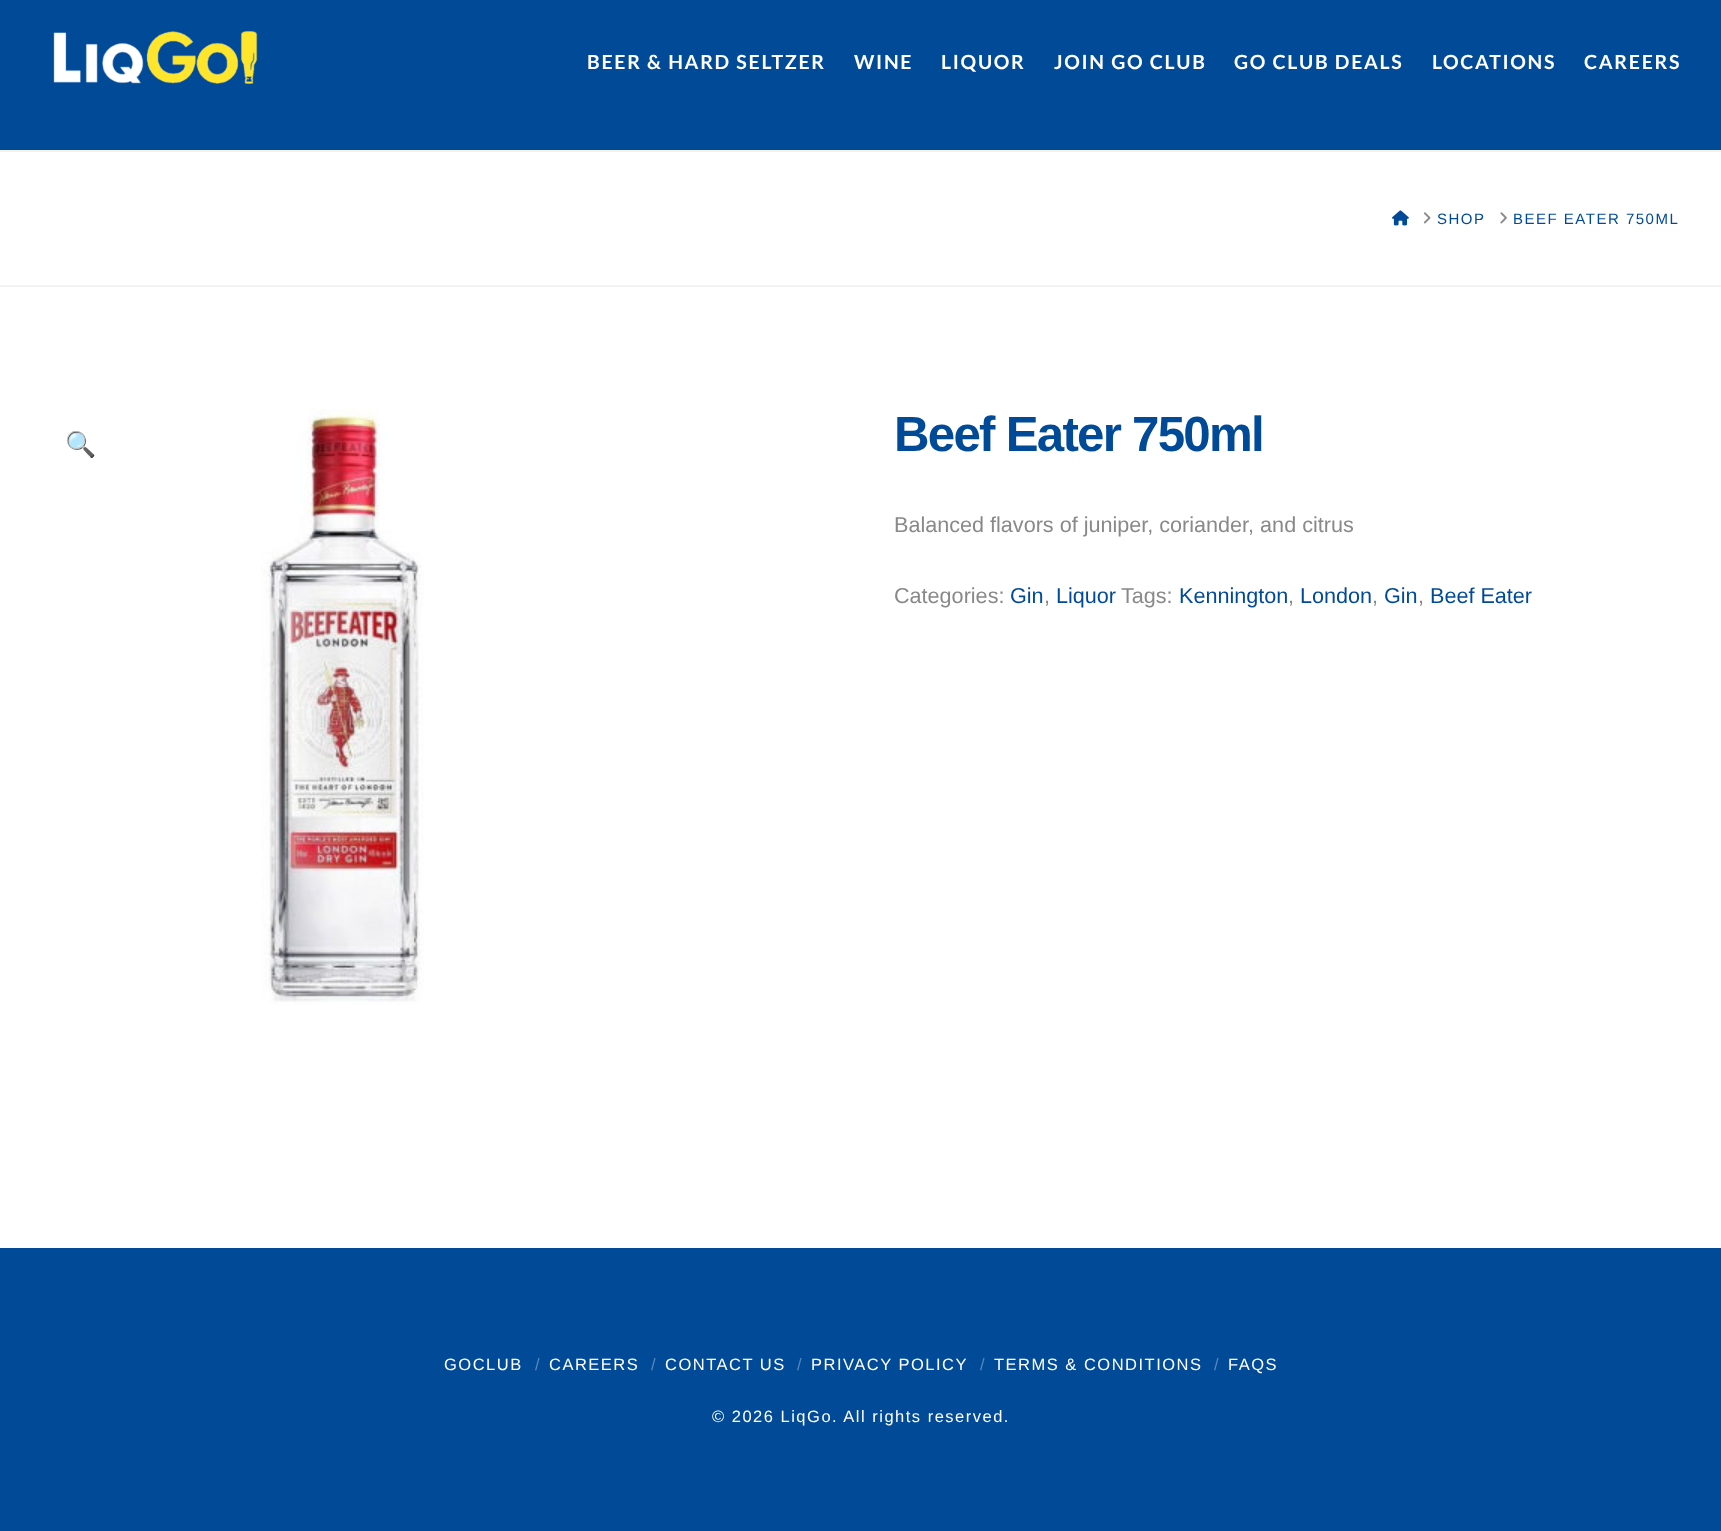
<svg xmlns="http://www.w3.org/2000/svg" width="1721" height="1531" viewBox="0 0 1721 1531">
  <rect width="100%" height="100%" fill="#ffffff"/>
  <rect x="0" y="0" width="1721" height="150" fill="#004a98"/>
  <image x="53" y="30" width="205" height="54" href="img1.png"/>
  <text x="587" y="69" font-family="Lato" font-size="19.5" font-weight="bold" letter-spacing="1.7" fill="#ffffff">BEER &amp; HARD SELTZER</text>
  <text x="854" y="69" font-family="Lato" font-size="19.5" font-weight="bold" letter-spacing="1.7" fill="#ffffff">WINE</text>
  <text x="941" y="69" font-family="Lato" font-size="19.5" font-weight="bold" letter-spacing="1.7" fill="#ffffff">LIQUOR</text>
  <text x="1054" y="69" font-family="Lato" font-size="19.5" font-weight="bold" letter-spacing="1.7" fill="#ffffff">JOIN GO CLUB</text>
  <text x="1234" y="69" font-family="Lato" font-size="19.5" font-weight="bold" letter-spacing="1.7" fill="#ffffff">GO CLUB DEALS</text>
  <text x="1432" y="69" font-family="Lato" font-size="19.5" font-weight="bold" letter-spacing="1.7" fill="#ffffff">LOCATIONS</text>
  <text x="1584" y="69" font-family="Lato" font-size="19.5" font-weight="bold" letter-spacing="1.7" fill="#ffffff">CAREERS</text>
  <rect x="0" y="150" width="1721" height="2" fill="#f2f2f2"/>
  <rect x="0" y="285" width="1721" height="2" fill="#f2f2f2"/>
  <image x="1392" y="210" width="17" height="16" href="img2.png"/>
  <image x="1423" y="212" width="8" height="12" href="img3.png"/>
  <text x="1437" y="224" font-family="Liberation Sans" font-size="15" letter-spacing="1.5" fill="#004a98">SHOP</text>
  <image x="1500" y="212" width="7" height="12" href="img4.png"/>
  <text x="1513" y="224" font-family="Liberation Sans" font-size="15" letter-spacing="1.5" fill="#004a98">BEEF EATER 750ML</text>
  <text x="65" y="453" font-family="Noto Color Emoji" font-size="25" fill="#004a98">🔍</text>
  <image x="261" y="408" width="163" height="597" href="img5.png"/>
  <text x="894" y="451" font-family="Liberation Sans" font-size="49.25" font-weight="bold" letter-spacing="-1.75" fill="#004a98">Beef Eater 750ml</text>
  <text x="894" y="532" font-family="Liberation Sans" font-size="21.6" fill="#898989">Balanced flavors of juniper, coriander, and citrus</text>
  <text x="894" y="603" font-family="Liberation Sans" font-size="21.6" fill="#898989">Categories:</text>
  <text x="1010" y="603" font-family="Liberation Sans" font-size="21.6" fill="#004a98">Gin</text>
  <text x="1044" y="603" font-family="Liberation Sans" font-size="21.6" fill="#898989">,</text>
  <text x="1056" y="603" font-family="Liberation Sans" font-size="21.6" fill="#004a98">Liquor</text>
  <text x="1121" y="603" font-family="Liberation Sans" font-size="21.6" fill="#898989">Tags:</text>
  <text x="1179" y="603" font-family="Liberation Sans" font-size="21.6" fill="#004a98">Kennington</text>
  <text x="1288" y="603" font-family="Liberation Sans" font-size="21.6" fill="#898989">,</text>
  <text x="1300" y="603" font-family="Liberation Sans" font-size="21.6" fill="#004a98">London</text>
  <text x="1372" y="603" font-family="Liberation Sans" font-size="21.6" fill="#898989">,</text>
  <text x="1384" y="603" font-family="Liberation Sans" font-size="21.6" fill="#004a98">Gin</text>
  <text x="1418" y="603" font-family="Liberation Sans" font-size="21.6" fill="#898989">,</text>
  <text x="1430" y="603" font-family="Liberation Sans" font-size="21.6" fill="#004a98">Beef Eater</text>
  <rect x="0" y="1248" width="1721" height="283" fill="#004a98"/>
  <text x="444" y="1370" font-family="Liberation Sans" font-size="16.5" letter-spacing="1.5" fill="#ffffff">GOCLUB</text>
  <text x="535" y="1370" font-family="Liberation Sans" font-size="16.5" fill="#5989bc">/</text>
  <text x="549" y="1370" font-family="Liberation Sans" font-size="16.5" letter-spacing="1.5" fill="#ffffff">CAREERS</text>
  <text x="651" y="1370" font-family="Liberation Sans" font-size="16.5" fill="#5989bc">/</text>
  <text x="665" y="1370" font-family="Liberation Sans" font-size="16.5" letter-spacing="1.5" fill="#ffffff">CONTACT US</text>
  <text x="797" y="1370" font-family="Liberation Sans" font-size="16.5" fill="#5989bc">/</text>
  <text x="811" y="1370" font-family="Liberation Sans" font-size="16.5" letter-spacing="1.5" fill="#ffffff">PRIVACY POLICY</text>
  <text x="980" y="1370" font-family="Liberation Sans" font-size="16.5" fill="#5989bc">/</text>
  <text x="994" y="1370" font-family="Liberation Sans" font-size="16.5" letter-spacing="1.5" fill="#ffffff">TERMS &amp; CONDITIONS</text>
  <text x="1214" y="1370" font-family="Liberation Sans" font-size="16.5" fill="#5989bc">/</text>
  <text x="1228" y="1370" font-family="Liberation Sans" font-size="16.5" letter-spacing="1.5" fill="#ffffff">FAQS</text>
  <text x="712" y="1422" font-family="Liberation Sans" font-size="16.5" letter-spacing="1.5" fill="#ffffff">© 2026 LiqGo. All rights reserved.</text>
</svg>
